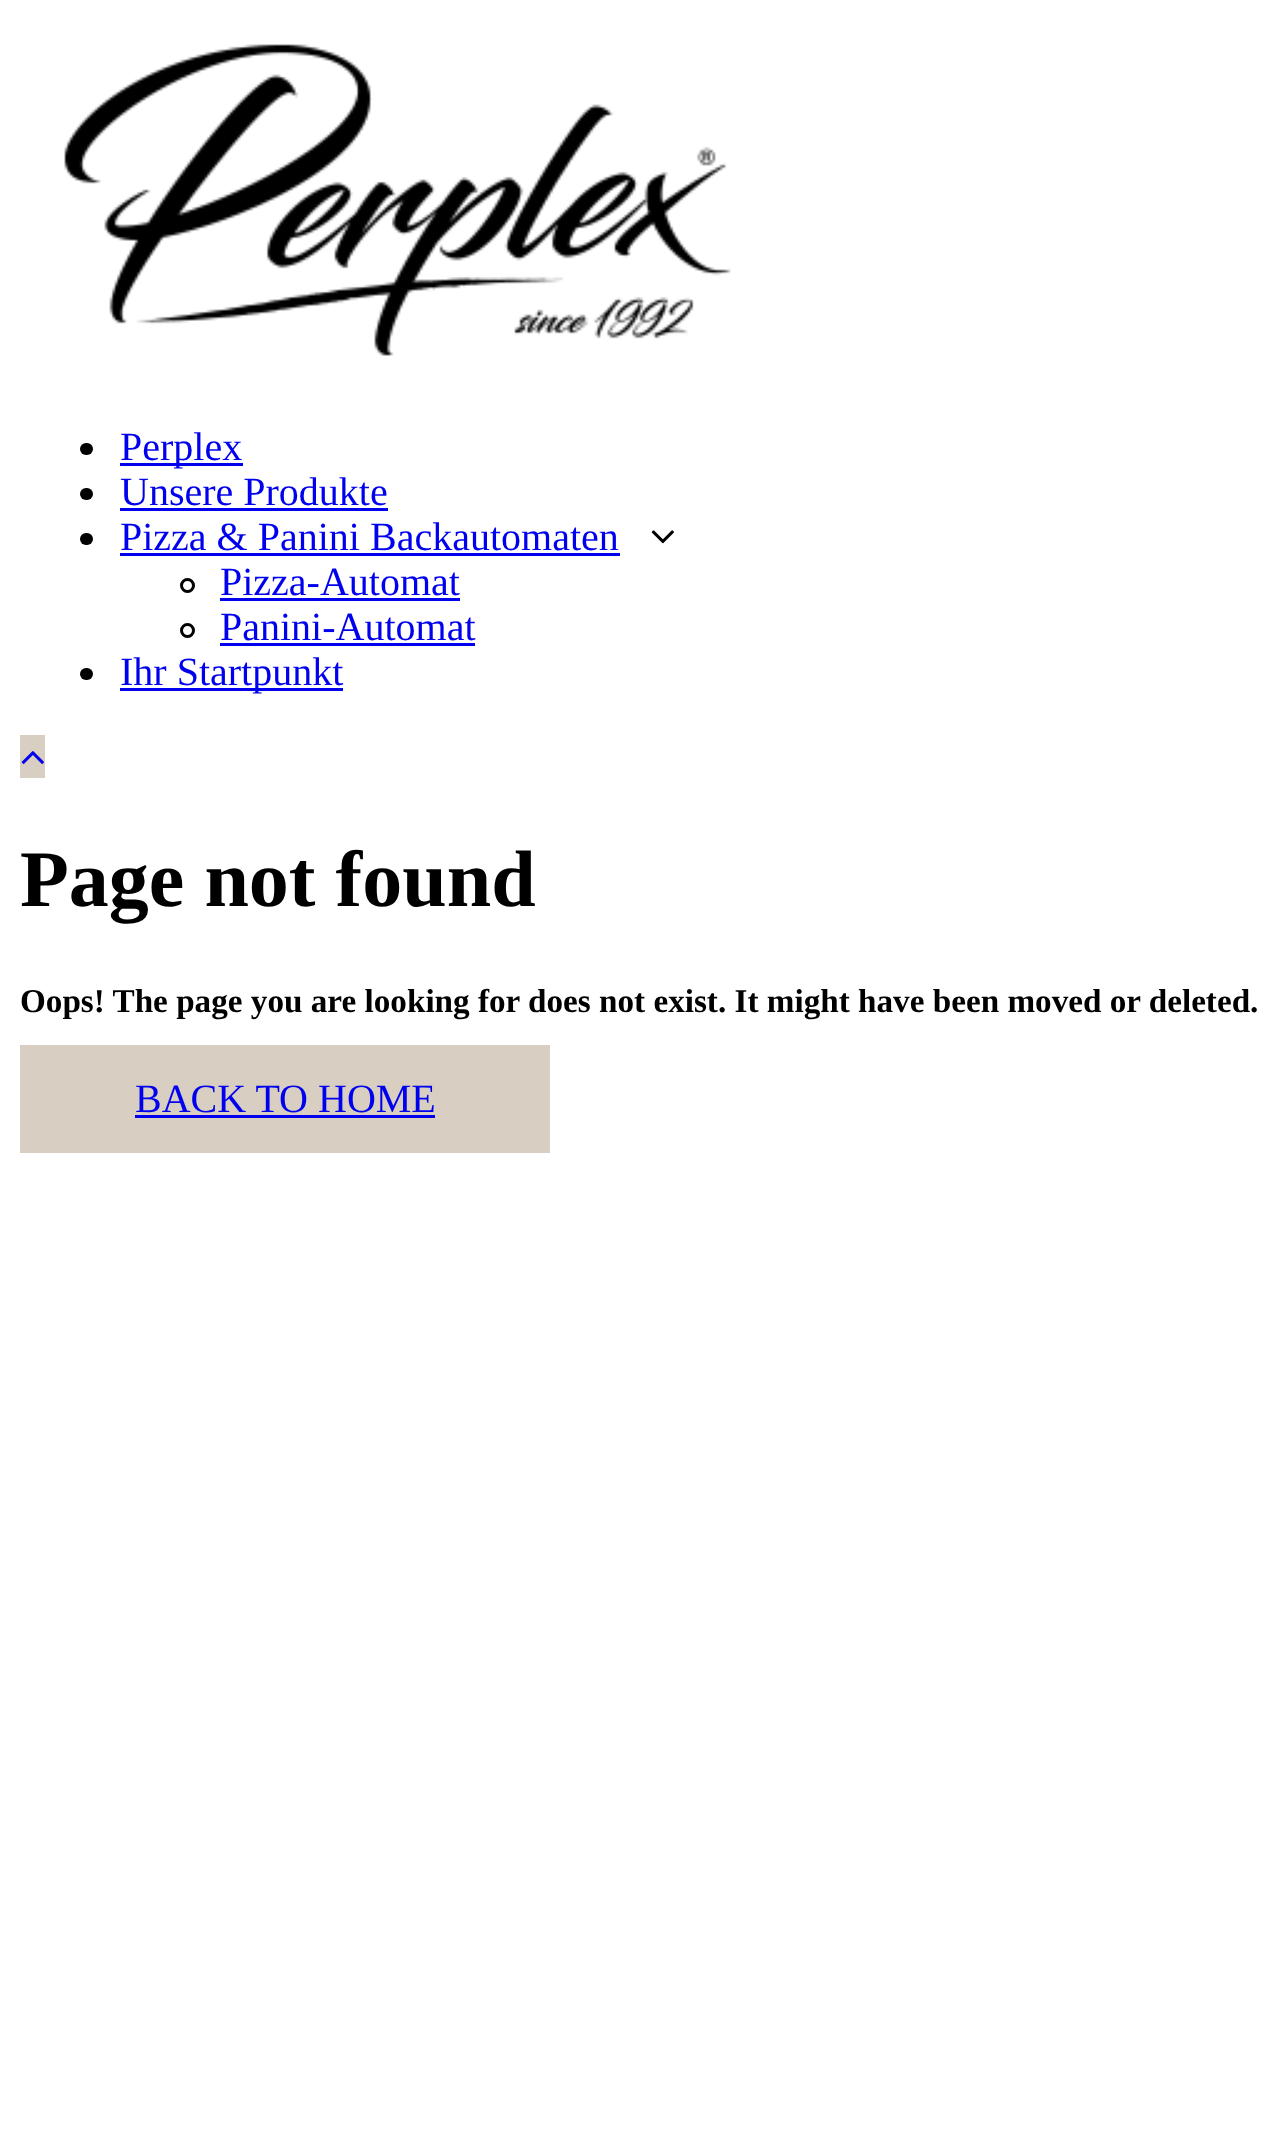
<svg xmlns="http://www.w3.org/2000/svg" width="1286" height="2148" viewBox="0 0 1286 2148">
  <rect width="100%" height="100%" fill="#ffffff"/>
  <image x="64" y="44" width="667" height="312" href="img1.png"/>
  <rect x="80" y="443" width="13" height="12" rx="6" fill="#000000"/>
  <rect x="120" y="463" width="123" height="3" fill="#0000ee"/>
  <text x="120" y="460" font-family="Liberation Serif" font-size="40" fill="#0000ee">Perplex</text>
  <rect x="80" y="488" width="13" height="12" rx="6" fill="#000000"/>
  <text x="120" y="505" font-family="Liberation Serif" font-size="40" fill="#0000ee">Unsere Produkte</text>
  <rect x="120" y="508" width="268" height="3" fill="#0000ee"/>
  <rect x="80" y="533" width="13" height="12" rx="6" fill="#000000"/>
  <text x="120" y="550" font-family="Liberation Serif" font-size="40" fill="#0000ee">Pizza &amp; Panini Backautomaten</text>
  <rect x="120" y="553" width="500" height="3" fill="#0000ee"/>
  <image x="651" y="530" width="23" height="14" href="img2.png"/>
  <circle cx="187.5" cy="585.5" r="6" fill="none" stroke="#000000" stroke-width="3"/>
  <text x="220" y="595" font-family="Liberation Serif" font-size="40" fill="#0000ee">Pizza-Automat</text>
  <rect x="220" y="598" width="240" height="3" fill="#0000ee"/>
  <circle cx="187.5" cy="630.5" r="6" fill="none" stroke="#000000" stroke-width="3"/>
  <text x="220" y="640" font-family="Liberation Serif" font-size="40" fill="#0000ee">Panini-Automat</text>
  <rect x="220" y="643" width="255" height="3" fill="#0000ee"/>
  <rect x="80" y="668" width="13" height="12" rx="6" fill="#000000"/>
  <rect x="120" y="688" width="223" height="3" fill="#0000ee"/>
  <text x="120" y="685" font-family="Liberation Serif" font-size="40" fill="#0000ee">Ihr Startpunkt</text>
  <rect x="20" y="735" width="25" height="43" fill="#d8cec1"/>
  <image x="21" y="751" width="23" height="13" href="img3.png"/>
  <text x="20" y="906" font-family="Liberation Serif" font-size="80" font-weight="bold" fill="#000000">Page not found</text>
  <text x="20" y="1012" font-family="Liberation Serif" font-size="33.2" font-weight="bold" fill="#000000">Oops! The page you are looking for does not exist. It might have been moved or deleted.</text>
  <rect x="20" y="1045" width="530" height="108" fill="#d8cec1"/>
  <text x="135" y="1112" font-family="Liberation Serif" font-size="40" fill="#0000ee">BACK TO HOME</text>
  <rect x="135" y="1115" width="300" height="3" fill="#0000ee"/>
</svg>
